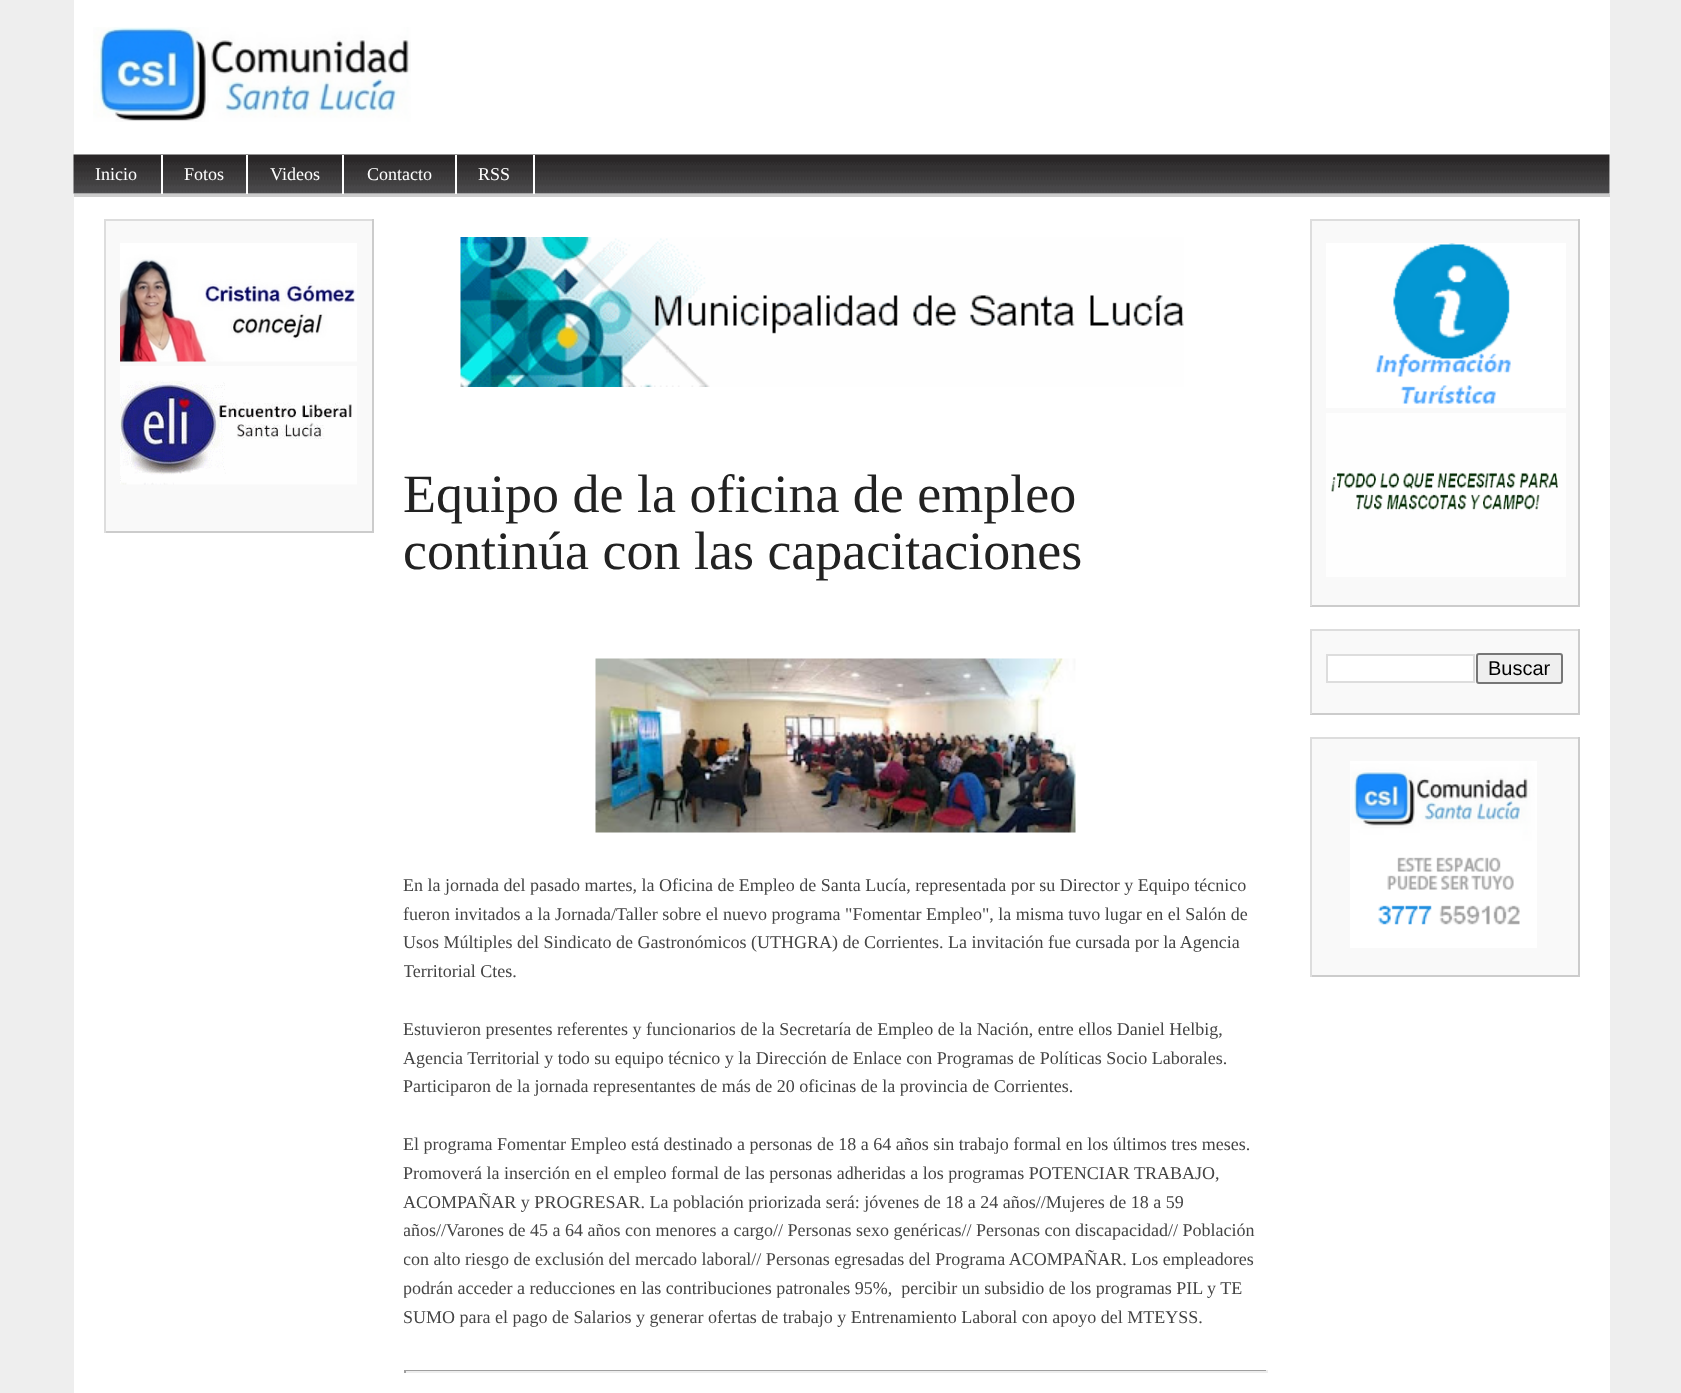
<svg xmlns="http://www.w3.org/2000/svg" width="1681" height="1393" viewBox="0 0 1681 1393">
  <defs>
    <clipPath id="clip1"><rect x="404" y="219" width="864" height="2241"/></clipPath>
  </defs>
  <rect width="100%" height="100%" fill="#eeeeee"/>
  <rect x="74" y="0" width="1536" height="1393" fill="#ffffff"/>
  <image x="93" y="27" width="318" height="95" href="img1.png"/>
  <image x="73" y="154" width="1537" height="40" href="img2.png"/>
  <rect x="161" y="155" width="2" height="39" fill="#ffffff"/>
  <text x="95" y="180" font-family="Liberation Serif" font-size="18" fill="#ffffff">Inicio</text>
  <rect x="246" y="155" width="2" height="39" fill="#ffffff"/>
  <text x="184" y="180" font-family="Liberation Serif" font-size="18" fill="#ffffff">Fotos</text>
  <rect x="342" y="155" width="2" height="39" fill="#ffffff"/>
  <text x="270" y="180" font-family="Liberation Serif" font-size="18" fill="#ffffff">Videos</text>
  <rect x="455" y="155" width="2" height="39" fill="#ffffff"/>
  <text x="367" y="180" font-family="Liberation Serif" font-size="18" fill="#ffffff">Contacto</text>
  <rect x="533" y="155" width="2" height="39" fill="#ffffff"/>
  <text x="478" y="180" font-family="Liberation Serif" font-size="18" fill="#ffffff">RSS</text>
  <rect x="74" y="194" width="1536" height="3" fill="#cccccc"/>
  <rect x="106" y="221" width="266" height="310" fill="#f9f9f9"/>
  <rect x="104" y="219" width="270" height="2" fill="#dddddd"/>
  <rect x="372" y="219" width="2" height="314" fill="#cccccc"/>
  <rect x="104" y="531" width="270" height="2" fill="#cccccc"/>
  <rect x="104" y="219" width="2" height="314" fill="#dddddd"/>
  <image x="120" y="243" width="237" height="119" href="img3.png"/>
  <image x="120" y="366" width="237" height="119" href="img4.png"/>
  <image x="460" y="237" width="724" height="150" href="img5.png"/>
  <text x="403" y="512" font-family="Liberation Serif" font-size="54" fill="#222222">Equipo de la oficina de empleo</text>
  <text x="403" y="569" font-family="Liberation Serif" font-size="54" fill="#222222">continúa con las capacitaciones</text>
  <image x="595" y="658" width="481" height="175" href="img6.png"/>
  <text x="403" y="891" font-family="Liberation Serif" font-size="18" fill="#444444">En la jornada del pasado martes, la Oficina de Empleo de Santa Lucía, representada por su Director y Equipo técnico</text>
  <text x="403" y="920" font-family="Liberation Serif" font-size="18" fill="#444444">fueron invitados a la Jornada/Taller sobre el nuevo programa "Fomentar Empleo", la misma tuvo lugar en el Salón de</text>
  <text x="403" y="948" font-family="Liberation Serif" font-size="18" fill="#444444">Usos Múltiples del Sindicato de Gastronómicos (UTHGRA) de Corrientes. La invitación fue cursada por la Agencia</text>
  <g clip-path="url(#clip1)">
    <text x="403" y="977" font-family="Liberation Serif" font-size="18" fill="#444444">Territorial Ctes.</text>
  </g>
  <text x="403" y="1035" font-family="Liberation Serif" font-size="18" fill="#444444">Estuvieron presentes referentes y funcionarios de la Secretaría de Empleo de la Nación, entre ellos Daniel Helbig,</text>
  <text x="403" y="1064" font-family="Liberation Serif" font-size="18" fill="#444444">Agencia Territorial y todo su equipo técnico y la Dirección de Enlace con Programas de Políticas Socio Laborales.</text>
  <text x="403" y="1092" font-family="Liberation Serif" font-size="18" fill="#444444">Participaron de la jornada representantes de más de 20 oficinas de la provincia de Corrientes.</text>
  <text x="403" y="1150" font-family="Liberation Serif" font-size="18" fill="#444444">El programa Fomentar Empleo está destinado a personas de 18 a 64 años sin trabajo formal en los últimos tres meses.</text>
  <text x="403" y="1179" font-family="Liberation Serif" font-size="18" fill="#444444">Promoverá la inserción en el empleo formal de las personas adheridas a los programas POTENCIAR TRABAJO,</text>
  <text x="403" y="1208" font-family="Liberation Serif" font-size="18" fill="#444444">ACOMPAÑAR y PROGRESAR. La población priorizada será: jóvenes de 18 a 24 años//Mujeres de 18 a 59</text>
  <g clip-path="url(#clip1)">
    <text x="403" y="1236" font-family="Liberation Serif" font-size="18" fill="#444444">años//Varones de 45 a 64 años con menores a cargo// Personas sexo genéricas// Personas con discapacidad// Población</text>
    <text x="403" y="1265" font-family="Liberation Serif" font-size="18" fill="#444444">con alto riesgo de exclusión del mercado laboral// Personas egresadas del Programa ACOMPAÑAR. Los empleadores</text>
    <text x="403" y="1294" font-family="Liberation Serif" font-size="18" fill="#444444" xml:space="preserve">podrán acceder a reducciones en las contribuciones patronales 95%,  percibir un subsidio de los programas PIL y TE</text>
  </g>
  <text x="403" y="1323" font-family="Liberation Serif" font-size="18" fill="#444444">SUMO para el pago de Salarios y generar ofertas de trabajo y Entrenamiento Laboral con apoyo del MTEYSS.</text>
  <rect x="404" y="1370" width="864" height="1" fill="#9f9f9f"/>
  <rect x="1266" y="1370" width="2" height="3" fill="#eeeeee"/>
  <rect x="404" y="1371" width="864" height="2" fill="#eeeeee"/>
  <rect x="404" y="1370" width="2" height="3" fill="#9f9f9f"/>
  <rect x="1312" y="221" width="266" height="384" fill="#f9f9f9"/>
  <rect x="1310" y="219" width="270" height="2" fill="#dddddd"/>
  <rect x="1578" y="219" width="2" height="387" fill="#cccccc"/>
  <rect x="1310" y="605" width="270" height="2" fill="#cccccc"/>
  <rect x="1310" y="219" width="2" height="387" fill="#dddddd"/>
  <image x="1326" y="243" width="240" height="165" href="img7.png"/>
  <image x="1326" y="413" width="240" height="164" href="img8.png"/>
  <rect x="1312" y="631" width="266" height="82" fill="#f9f9f9"/>
  <rect x="1310" y="629" width="270" height="2" fill="#dddddd"/>
  <rect x="1578" y="629" width="2" height="85" fill="#cccccc"/>
  <rect x="1310" y="713" width="270" height="2" fill="#cccccc"/>
  <rect x="1310" y="629" width="2" height="85" fill="#dddddd"/>
  <rect x="1327" y="655" width="147" height="27" fill="#ffffff" stroke="#dddddd" stroke-width="2"/>
  <rect x="1477" y="654" width="85" height="29" rx="2" fill="#efefef" stroke="#767676" stroke-width="2"/>
  <text x="1488" y="675" font-family="Liberation Sans" font-size="20" fill="#000000">Buscar</text>
  <rect x="1312" y="739" width="266" height="236" fill="#f9f9f9"/>
  <rect x="1310" y="737" width="270" height="2" fill="#dddddd"/>
  <rect x="1578" y="737" width="2" height="240" fill="#cccccc"/>
  <rect x="1310" y="975" width="270" height="2" fill="#cccccc"/>
  <rect x="1310" y="737" width="2" height="240" fill="#dddddd"/>
  <image x="1350" y="761" width="187" height="187" href="img9.png"/>
</svg>
